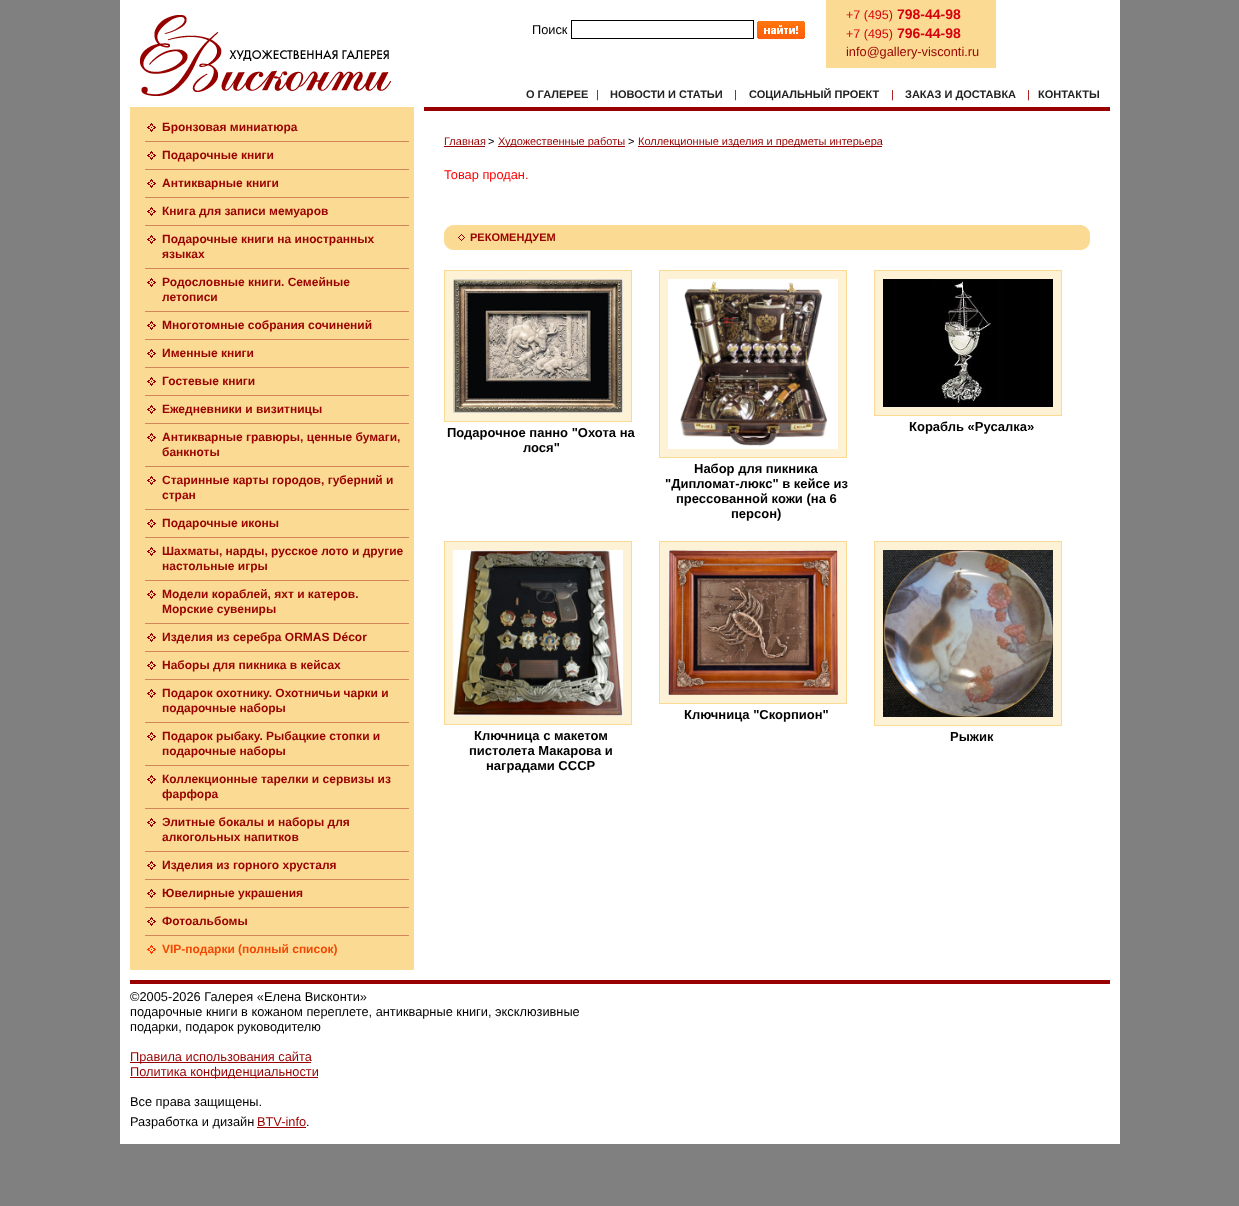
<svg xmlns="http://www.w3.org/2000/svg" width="1239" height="1206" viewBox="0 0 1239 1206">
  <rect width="100%" height="100%" fill="#808080"/>
  <rect x="120" y="0" width="1000" height="1144" fill="#ffffff"/>
  <image x="140" y="15" width="251" height="81" href="img1.png"/>
  <text x="532" y="34" font-family="Liberation Sans" font-size="12.8" fill="#000000">Поиск</text>
  <rect x="571.5" y="20.5" width="182" height="18" fill="none" stroke="#000000"/>
  <image x="757" y="21" width="48" height="18" href="img2.png"/>
  <rect x="826" y="0" width="170" height="68" fill="#fbdb93"/>
  <text x="846" y="19" font-family="Liberation Sans" font-size="12.5" fill="#d6000f">+7 (495)</text>
  <text x="897" y="19" font-family="Liberation Sans" font-size="14" font-weight="bold" fill="#d6000f">798-44-98</text>
  <text x="846" y="38" font-family="Liberation Sans" font-size="12.5" fill="#d6000f">+7 (495)</text>
  <text x="897" y="38" font-family="Liberation Sans" font-size="14" font-weight="bold" fill="#d6000f">796-44-98</text>
  <text x="846" y="56" font-family="Liberation Sans" font-size="12.8" fill="#990000">info@gallery-visconti.ru</text>
  <text x="526" y="98" font-family="Liberation Sans" font-size="11" font-weight="bold" fill="#222222">О ГАЛЕРЕЕ</text>
  <text x="596" y="98" font-family="Liberation Sans" font-size="11" fill="#990000">|</text>
  <text x="610" y="98" font-family="Liberation Sans" font-size="11" font-weight="bold" fill="#222222">НОВОСТИ И СТАТЬИ</text>
  <text x="734" y="98" font-family="Liberation Sans" font-size="11" fill="#990000">|</text>
  <text x="749" y="98" font-family="Liberation Sans" font-size="11" font-weight="bold" fill="#222222">СОЦИАЛЬНЫЙ ПРОЕКТ</text>
  <text x="891" y="98" font-family="Liberation Sans" font-size="11" fill="#990000">|</text>
  <text x="905" y="98" font-family="Liberation Sans" font-size="11" font-weight="bold" fill="#222222">ЗАКАЗ И ДОСТАВКА</text>
  <text x="1027" y="98" font-family="Liberation Sans" font-size="11" fill="#990000">|</text>
  <text x="1038" y="98" font-family="Liberation Sans" font-size="11" font-weight="bold" fill="#222222">КОНТАКТЫ</text>
  <rect x="130" y="107" width="284" height="863" fill="#fbdb93"/>
  <image x="147" y="123" width="9" height="9" href="img3.png"/>
  <text x="162" y="131" font-family="Liberation Sans" font-size="12" font-weight="bold" fill="#990000">Бронзовая миниатюра</text>
  <rect x="145" y="141" width="264" height="1" fill="#d38458"/>
  <image x="147" y="151" width="9" height="9" href="img3.png"/>
  <text x="162" y="159" font-family="Liberation Sans" font-size="12" font-weight="bold" fill="#990000">Подарочные книги</text>
  <rect x="145" y="169" width="264" height="1" fill="#d38458"/>
  <image x="147" y="179" width="9" height="9" href="img3.png"/>
  <text x="162" y="187" font-family="Liberation Sans" font-size="12" font-weight="bold" fill="#990000">Антикварные книги</text>
  <rect x="145" y="197" width="264" height="1" fill="#d38458"/>
  <image x="147" y="207" width="9" height="9" href="img3.png"/>
  <text x="162" y="215" font-family="Liberation Sans" font-size="12" font-weight="bold" fill="#990000">Книга для записи мемуаров</text>
  <rect x="145" y="225" width="264" height="1" fill="#d38458"/>
  <image x="147" y="235" width="9" height="9" href="img3.png"/>
  <text x="162" y="243" font-family="Liberation Sans" font-size="12" font-weight="bold" fill="#990000">Подарочные книги на иностранных</text>
  <text x="162" y="258" font-family="Liberation Sans" font-size="12" font-weight="bold" fill="#990000">языках</text>
  <rect x="145" y="268" width="264" height="1" fill="#d38458"/>
  <image x="147" y="278" width="9" height="9" href="img3.png"/>
  <text x="162" y="286" font-family="Liberation Sans" font-size="12" font-weight="bold" fill="#990000">Родословные книги. Семейные</text>
  <text x="162" y="301" font-family="Liberation Sans" font-size="12" font-weight="bold" fill="#990000">летописи</text>
  <rect x="145" y="311" width="264" height="1" fill="#d38458"/>
  <image x="147" y="321" width="9" height="9" href="img3.png"/>
  <text x="162" y="329" font-family="Liberation Sans" font-size="12" font-weight="bold" fill="#990000">Многотомные собрания сочинений</text>
  <rect x="145" y="339" width="264" height="1" fill="#d38458"/>
  <image x="147" y="349" width="9" height="9" href="img3.png"/>
  <text x="162" y="357" font-family="Liberation Sans" font-size="12" font-weight="bold" fill="#990000">Именные книги</text>
  <rect x="145" y="367" width="264" height="1" fill="#d38458"/>
  <image x="147" y="377" width="9" height="9" href="img3.png"/>
  <text x="162" y="385" font-family="Liberation Sans" font-size="12" font-weight="bold" fill="#990000">Гостевые книги</text>
  <rect x="145" y="395" width="264" height="1" fill="#d38458"/>
  <image x="147" y="405" width="9" height="9" href="img3.png"/>
  <text x="162" y="413" font-family="Liberation Sans" font-size="12" font-weight="bold" fill="#990000">Ежедневники и визитницы</text>
  <rect x="145" y="423" width="264" height="1" fill="#d38458"/>
  <image x="147" y="433" width="9" height="9" href="img3.png"/>
  <text x="162" y="441" font-family="Liberation Sans" font-size="12" font-weight="bold" fill="#990000">Антикварные гравюры, ценные бумаги,</text>
  <text x="162" y="456" font-family="Liberation Sans" font-size="12" font-weight="bold" fill="#990000">банкноты</text>
  <rect x="145" y="466" width="264" height="1" fill="#d38458"/>
  <image x="147" y="476" width="9" height="9" href="img3.png"/>
  <text x="162" y="484" font-family="Liberation Sans" font-size="12" font-weight="bold" fill="#990000">Старинные карты городов, губерний и</text>
  <text x="162" y="499" font-family="Liberation Sans" font-size="12" font-weight="bold" fill="#990000">стран</text>
  <rect x="145" y="509" width="264" height="1" fill="#d38458"/>
  <image x="147" y="519" width="9" height="9" href="img3.png"/>
  <text x="162" y="527" font-family="Liberation Sans" font-size="12" font-weight="bold" fill="#990000">Подарочные иконы</text>
  <rect x="145" y="537" width="264" height="1" fill="#d38458"/>
  <image x="147" y="547" width="9" height="9" href="img3.png"/>
  <text x="162" y="555" font-family="Liberation Sans" font-size="12" font-weight="bold" fill="#990000">Шахматы, нарды, русское лото и другие</text>
  <text x="162" y="570" font-family="Liberation Sans" font-size="12" font-weight="bold" fill="#990000">настольные игры</text>
  <rect x="145" y="580" width="264" height="1" fill="#d38458"/>
  <image x="147" y="590" width="9" height="9" href="img3.png"/>
  <text x="162" y="598" font-family="Liberation Sans" font-size="12" font-weight="bold" fill="#990000">Модели кораблей, яхт и катеров.</text>
  <text x="162" y="613" font-family="Liberation Sans" font-size="12" font-weight="bold" fill="#990000">Морские сувениры</text>
  <rect x="145" y="623" width="264" height="1" fill="#d38458"/>
  <image x="147" y="633" width="9" height="9" href="img3.png"/>
  <text x="162" y="641" font-family="Liberation Sans" font-size="12" font-weight="bold" fill="#990000">Изделия из серебра ORMAS Décor</text>
  <rect x="145" y="651" width="264" height="1" fill="#d38458"/>
  <image x="147" y="661" width="9" height="9" href="img3.png"/>
  <text x="162" y="669" font-family="Liberation Sans" font-size="12" font-weight="bold" fill="#990000">Наборы для пикника в кейсах</text>
  <rect x="145" y="679" width="264" height="1" fill="#d38458"/>
  <image x="147" y="689" width="9" height="9" href="img3.png"/>
  <text x="162" y="697" font-family="Liberation Sans" font-size="12" font-weight="bold" fill="#990000">Подарок охотнику. Охотничьи чарки и</text>
  <text x="162" y="712" font-family="Liberation Sans" font-size="12" font-weight="bold" fill="#990000">подарочные наборы</text>
  <rect x="145" y="722" width="264" height="1" fill="#d38458"/>
  <image x="147" y="732" width="9" height="9" href="img3.png"/>
  <text x="162" y="740" font-family="Liberation Sans" font-size="12" font-weight="bold" fill="#990000">Подарок рыбаку. Рыбацкие стопки и</text>
  <text x="162" y="755" font-family="Liberation Sans" font-size="12" font-weight="bold" fill="#990000">подарочные наборы</text>
  <rect x="145" y="765" width="264" height="1" fill="#d38458"/>
  <image x="147" y="775" width="9" height="9" href="img3.png"/>
  <text x="162" y="783" font-family="Liberation Sans" font-size="12" font-weight="bold" fill="#990000">Коллекционные тарелки и сервизы из</text>
  <text x="162" y="798" font-family="Liberation Sans" font-size="12" font-weight="bold" fill="#990000">фарфора</text>
  <rect x="145" y="808" width="264" height="1" fill="#d38458"/>
  <image x="147" y="818" width="9" height="9" href="img3.png"/>
  <text x="162" y="826" font-family="Liberation Sans" font-size="12" font-weight="bold" fill="#990000">Элитные бокалы и наборы для</text>
  <text x="162" y="841" font-family="Liberation Sans" font-size="12" font-weight="bold" fill="#990000">алкогольных напитков</text>
  <rect x="145" y="851" width="264" height="1" fill="#d38458"/>
  <image x="147" y="861" width="9" height="9" href="img3.png"/>
  <text x="162" y="869" font-family="Liberation Sans" font-size="12" font-weight="bold" fill="#990000">Изделия из горного хрусталя</text>
  <rect x="145" y="879" width="264" height="1" fill="#d38458"/>
  <image x="147" y="889" width="9" height="9" href="img3.png"/>
  <text x="162" y="897" font-family="Liberation Sans" font-size="12" font-weight="bold" fill="#990000">Ювелирные украшения</text>
  <rect x="145" y="907" width="264" height="1" fill="#d38458"/>
  <image x="147" y="917" width="9" height="9" href="img3.png"/>
  <text x="162" y="925" font-family="Liberation Sans" font-size="12" font-weight="bold" fill="#990000">Фотоальбомы</text>
  <rect x="145" y="935" width="264" height="1" fill="#d38458"/>
  <image x="147" y="945" width="9" height="9" href="img4.png"/>
  <text x="162" y="953" font-family="Liberation Sans" font-size="12" font-weight="bold" fill="#f24805">VIP-подарки (полный список)</text>
  <rect x="424" y="107" width="686" height="4" fill="#990000"/>
  <text x="444" y="145" font-family="Liberation Sans" font-size="11" fill="#990000">Главная</text>
  <rect x="444" y="146" width="41" height="1" fill="#990000"/>
  <text x="488" y="145" font-family="Liberation Sans" font-size="11" fill="#000000">&gt;</text>
  <rect x="498" y="146" width="127" height="1" fill="#990000"/>
  <text x="498" y="145" font-family="Liberation Sans" font-size="11" fill="#990000">Художественные работы</text>
  <text x="628" y="145" font-family="Liberation Sans" font-size="11" fill="#000000">&gt;</text>
  <rect x="638" y="146" width="244" height="1" fill="#990000"/>
  <text x="638" y="145" font-family="Liberation Sans" font-size="11" fill="#990000">Коллекционные изделия и предметы интерьера</text>
  <text x="444" y="179" font-family="Liberation Sans" font-size="12.8" fill="#ff0000">Товар продан.</text>
  <image x="444" y="225" width="9" height="25" href="img5.png"/>
  <rect x="453" y="225" width="628" height="25" fill="#fbdb93"/>
  <image x="458" y="234" width="7" height="7" href="img6.png"/>
  <text x="470" y="241" font-family="Liberation Sans" font-size="11" font-weight="bold" fill="#990000">РЕКОМЕНДУЕМ</text>
  <image x="1081" y="225" width="9" height="25" href="img7.png"/>
  <rect x="444.5" y="270.5" width="187" height="151" fill="#fef2d6" stroke="#fbdb93"/>
  <image x="453" y="279" width="170" height="134" href="img8.png"/>
  <text x="447" y="437" font-family="Liberation Sans" font-size="13" font-weight="bold" fill="#000000">Подарочное панно "Охота на</text>
  <text x="523" y="452" font-family="Liberation Sans" font-size="13" font-weight="bold" fill="#000000">лося"</text>
  <rect x="874.5" y="270.5" width="187" height="145" fill="#fef2d6" stroke="#fbdb93"/>
  <image x="883" y="279" width="170" height="128" href="img9.png"/>
  <text x="909" y="431" font-family="Liberation Sans" font-size="13" font-weight="bold" fill="#000000">Корабль «Русалка»</text>
  <rect x="659.5" y="270.5" width="187" height="187" fill="#fef2d6" stroke="#fbdb93"/>
  <image x="668" y="279" width="170" height="170" href="img10.png"/>
  <text x="694" y="473" font-family="Liberation Sans" font-size="13" font-weight="bold" fill="#000000">Набор для пикника</text>
  <text x="665" y="488" font-family="Liberation Sans" font-size="13" font-weight="bold" fill="#000000">"Дипломат-люкс" в кейсе из</text>
  <text x="676" y="503" font-family="Liberation Sans" font-size="13" font-weight="bold" fill="#000000">прессованной кожи (на 6</text>
  <text x="731" y="518" font-family="Liberation Sans" font-size="13" font-weight="bold" fill="#000000">персон)</text>
  <rect x="659.5" y="541.5" width="187" height="162" fill="#fef2d6" stroke="#fbdb93"/>
  <image x="668" y="550" width="170" height="145" href="img11.png"/>
  <text x="684" y="719" font-family="Liberation Sans" font-size="13" font-weight="bold" fill="#000000">Ключница "Скорпион"</text>
  <rect x="444.5" y="541.5" width="187" height="183" fill="#fef2d6" stroke="#fbdb93"/>
  <image x="453" y="550" width="170" height="166" href="img12.png"/>
  <text x="474" y="740" font-family="Liberation Sans" font-size="13" font-weight="bold" fill="#000000">Ключница с макетом</text>
  <text x="469" y="755" font-family="Liberation Sans" font-size="13" font-weight="bold" fill="#000000">пистолета Макарова и</text>
  <text x="486" y="770" font-family="Liberation Sans" font-size="13" font-weight="bold" fill="#000000">наградами СССР</text>
  <rect x="874.5" y="541.5" width="187" height="184" fill="#fef2d6" stroke="#fbdb93"/>
  <image x="883" y="550" width="170" height="167" href="img13.png"/>
  <text x="950" y="741" font-family="Liberation Sans" font-size="13" font-weight="bold" fill="#000000">Рыжик</text>
  <rect x="130" y="980" width="980" height="4" fill="#990000"/>
  <text x="130" y="1001" font-family="Liberation Sans" font-size="12.8" fill="#000000">©2005-2026 Галерея «Елена Висконти»</text>
  <text x="130" y="1016" font-family="Liberation Sans" font-size="12.8" fill="#000000">подарочные книги в кожаном переплете, антикварные книги, эксклюзивные</text>
  <text x="130" y="1031" font-family="Liberation Sans" font-size="12.8" fill="#000000">подарки, подарок руководителю</text>
  <rect x="130" y="1062" width="181" height="1" fill="#990000"/>
  <text x="130" y="1061" font-family="Liberation Sans" font-size="12.8" fill="#990000">Правила использования сайта</text>
  <rect x="130" y="1077" width="188" height="1" fill="#990000"/>
  <text x="130" y="1076" font-family="Liberation Sans" font-size="12.8" fill="#990000">Политика конфиденциальности</text>
  <text x="130" y="1106" font-family="Liberation Sans" font-size="12.8" fill="#000000">Все права защищены.</text>
  <text x="130" y="1126" font-family="Liberation Sans" font-size="12.8" fill="#000000">Разработка и дизайн</text>
  <text x="257" y="1126" font-family="Liberation Sans" font-size="12.8" fill="#990000">BTV-info</text>
  <rect x="257" y="1127" width="49" height="1" fill="#990000"/>
  <text x="306" y="1126" font-family="Liberation Sans" font-size="12.8" fill="#000000">.</text>
</svg>
